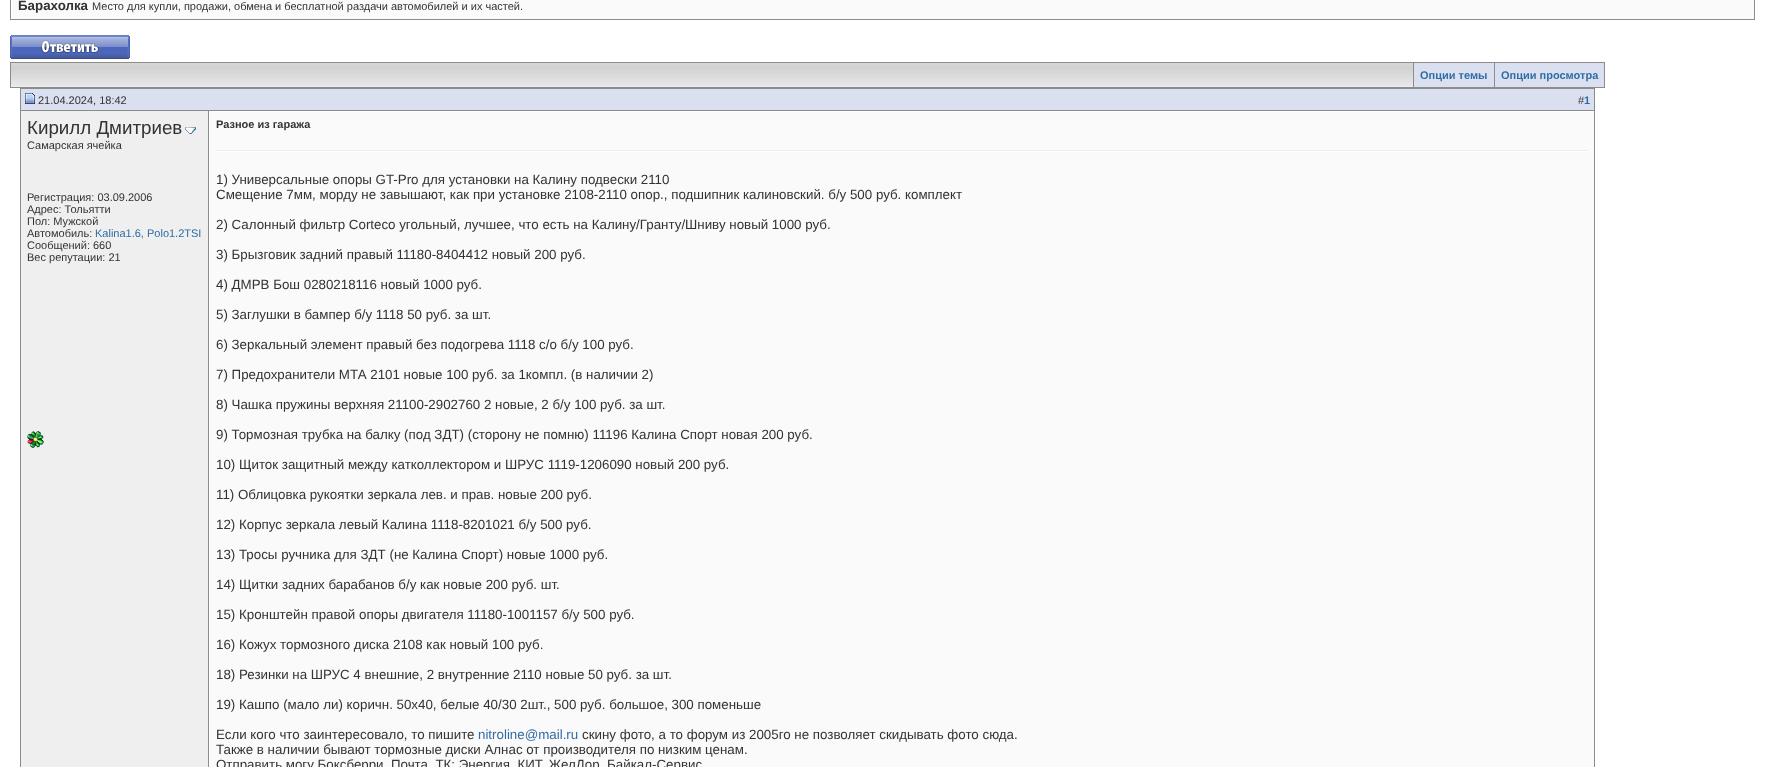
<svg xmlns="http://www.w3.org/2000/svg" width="1765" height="767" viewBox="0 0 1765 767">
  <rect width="100%" height="100%" fill="#ffffff"/>
  <rect x="10" y="0" width="1745" height="20" fill="#8c8c8c"/>
  <rect x="12" y="0" width="1742" height="19" fill="#fafafa"/>
  <rect x="11" y="0" width="1" height="19" fill="#ffffff"/>
  <text x="18" y="10" font-family="Liberation Sans" font-size="13.33" font-weight="bold" fill="#333333">Барахолка</text>
  <text x="92" y="10" font-family="Liberation Sans" font-size="11" fill="#333333">Место для купли, продажи, обмена и бесплатной раздачи автомобилей и их частей.</text>
  <image x="10" y="35" width="120" height="24" href="img1.png"/>
  <rect x="10" y="62" width="1595" height="26" fill="#8c8c8c"/>
  <rect x="11" y="86" width="1402" height="1" fill="#ededed"/>
  <image x="11" y="63" width="1402" height="23" href="img2.png"/>
  <rect x="1414" y="63" width="80" height="24" fill="#dbe0f1"/>
  <text x="1420" y="79" font-family="Liberation Sans" font-size="11" font-weight="bold" fill="#306ca4">Опции темы</text>
  <rect x="1495" y="63" width="109" height="24" fill="#dbe0f1"/>
  <text x="1501" y="79" font-family="Liberation Sans" font-size="11" font-weight="bold" fill="#306ca4">Опции просмотра</text>
  <rect x="21" y="89" width="1573" height="21" fill="#dbe0f1"/>
  <rect x="20" y="88" width="1575" height="1" fill="#8c8c8c"/>
  <rect x="20" y="110" width="189" height="1" fill="#8c8c8c"/>
  <rect x="20" y="88" width="1" height="679" fill="#8c8c8c"/>
  <image x="25" y="93" width="10" height="11" href="img3.png"/>
  <text x="38" y="104" font-family="Liberation Sans" font-size="11" fill="#333333">21.04.2024, 18:42</text>
  <rect x="1594" y="88" width="1" height="679" fill="#8c8c8c"/>
  <rect x="209" y="110" width="1386" height="1" fill="#8c8c8c"/>
  <text x="1578" y="104" font-family="Liberation Sans" font-size="11" fill="#333333">#</text>
  <text x="1584" y="104" font-family="Liberation Sans" font-size="11" font-weight="bold" fill="#306ca4">1</text>
  <rect x="21" y="111" width="187" height="656" fill="#efefef"/>
  <rect x="208" y="111" width="1" height="656" fill="#8c8c8c"/>
  <text x="27" y="134" font-family="Liberation Sans" font-size="18.75" fill="#333333">Кирилл Дмитриев</text>
  <image x="185" y="127" width="11" height="7" href="img4.png"/>
  <text x="27" y="149" font-family="Liberation Sans" font-size="11" fill="#333333">Самарская ячейка</text>
  <text x="27" y="201" font-family="Liberation Sans" font-size="11" fill="#333333">Регистрация: 03.09.2006</text>
  <text x="27" y="213" font-family="Liberation Sans" font-size="11" fill="#333333">Адрес: Тольятти</text>
  <text x="27" y="225" font-family="Liberation Sans" font-size="11" fill="#333333">Пол: Мужской</text>
  <text x="27" y="237" font-family="Liberation Sans" font-size="11" fill="#333333">Автомобиль:</text>
  <text x="95" y="237" font-family="Liberation Sans" font-size="11" fill="#306ca4">Kalina1.6, Polo1.2TSI</text>
  <text x="27" y="249" font-family="Liberation Sans" font-size="11" fill="#333333">Сообщений: 660</text>
  <text x="27" y="261" font-family="Liberation Sans" font-size="11" fill="#333333">Вес репутации: 21</text>
  <image x="27" y="431" width="17" height="17" href="img5.png"/>
  <rect x="210" y="112" width="1384" height="655" fill="#fafafa"/>
  <text x="216" y="128" font-family="Liberation Sans" font-size="11" font-weight="bold" fill="#333333">Разное из гаража</text>
  <rect x="216" y="150" width="1372" height="1" fill="#eeeeee"/>
  <rect x="216" y="151" width="1372" height="1" fill="#ffffff"/>
  <text x="216" y="184" font-family="Liberation Sans" font-size="13.33" fill="#333333">1) Универсальные опоры GT-Pro для установки на Калину подвески 2110</text>
  <text x="216" y="199" font-family="Liberation Sans" font-size="13.33" fill="#333333">Смещение 7мм, морду не завышают, как при установке 2108-2110 опор., подшипник калиновский. б/у 500 руб. комплект</text>
  <text x="216" y="229" font-family="Liberation Sans" font-size="13.33" fill="#333333">2) Салонный фильтр Corteco угольный, лучшее, что есть на Калину/Гранту/Шниву новый 1000 руб.</text>
  <text x="216" y="259" font-family="Liberation Sans" font-size="13.33" fill="#333333">3) Брызговик задний правый 11180-8404412 новый 200 руб.</text>
  <text x="216" y="289" font-family="Liberation Sans" font-size="13.33" fill="#333333">4) ДМРВ Бош 0280218116 новый 1000 руб.</text>
  <text x="216" y="319" font-family="Liberation Sans" font-size="13.33" fill="#333333">5) Заглушки в бампер б/у 1118 50 руб. за шт.</text>
  <text x="216" y="349" font-family="Liberation Sans" font-size="13.33" fill="#333333">6) Зеркальный элемент правый без подогрева 1118 с/о б/у 100 руб.</text>
  <text x="216" y="379" font-family="Liberation Sans" font-size="13.33" fill="#333333">7) Предохранители МТА 2101 новые 100 руб. за 1компл. (в наличии 2)</text>
  <text x="216" y="409" font-family="Liberation Sans" font-size="13.33" fill="#333333">8) Чашка пружины верхняя 21100-2902760 2 новые, 2 б/у 100 руб. за шт.</text>
  <text x="216" y="439" font-family="Liberation Sans" font-size="13.33" fill="#333333">9) Тормозная трубка на балку (под ЗДТ) (сторону не помню) 11196 Калина Спорт новая 200 руб.</text>
  <text x="216" y="469" font-family="Liberation Sans" font-size="13.33" fill="#333333">10) Щиток защитный между катколлектором и ШРУС 1119-1206090 новый 200 руб.</text>
  <text x="216" y="499" font-family="Liberation Sans" font-size="13.33" fill="#333333">11) Облицовка рукоятки зеркала лев. и прав. новые 200 руб.</text>
  <text x="216" y="529" font-family="Liberation Sans" font-size="13.33" fill="#333333">12) Корпус зеркала левый Калина 1118-8201021 б/у 500 руб.</text>
  <text x="216" y="559" font-family="Liberation Sans" font-size="13.33" fill="#333333">13) Тросы ручника для ЗДТ (не Калина Спорт) новые 1000 руб.</text>
  <text x="216" y="589" font-family="Liberation Sans" font-size="13.33" fill="#333333">14) Щитки задних барабанов б/у как новые 200 руб. шт.</text>
  <text x="216" y="619" font-family="Liberation Sans" font-size="13.33" fill="#333333">15) Кронштейн правой опоры двигателя 11180-1001157 б/у 500 руб.</text>
  <text x="216" y="649" font-family="Liberation Sans" font-size="13.33" fill="#333333">16) Кожух тормозного диска 2108 как новый 100 руб.</text>
  <text x="216" y="679" font-family="Liberation Sans" font-size="13.33" fill="#333333">18) Резинки на ШРУС 4 внешние, 2 внутренние 2110 новые 50 руб. за шт.</text>
  <text x="216" y="709" font-family="Liberation Sans" font-size="13.33" fill="#333333">19) Кашпо (мало ли) коричн. 50х40, белые 40/30 2шт., 500 руб. большое, 300 поменьше</text>
  <text x="216" y="739" font-family="Liberation Sans" font-size="13.33" fill="#333333">Если кого что заинтересовало, то пишите</text>
  <text x="478" y="739" font-family="Liberation Sans" font-size="13.33" fill="#306ca4">nitroline@mail.ru</text>
  <text x="582" y="739" font-family="Liberation Sans" font-size="13.33" fill="#333333">скину фото, а то форум из 2005го не позволяет скидывать фото сюда.</text>
  <text x="216" y="754" font-family="Liberation Sans" font-size="13.33" fill="#333333">Также в наличии бывают тормозные диски Алнас от производителя по низким ценам.</text>
  <text x="216" y="769" font-family="Liberation Sans" font-size="13.33" fill="#333333">Отправить могу Боксберри, Почта, ТК: Энергия, КИТ, ЖелДор, Байкал-Сервис</text>
</svg>
